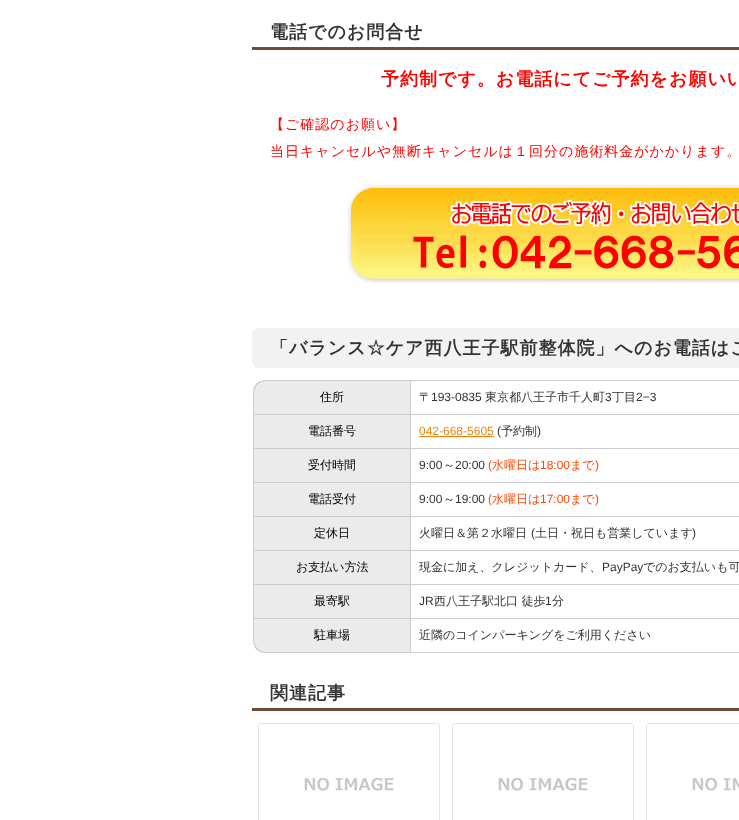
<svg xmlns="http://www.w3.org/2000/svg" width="739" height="820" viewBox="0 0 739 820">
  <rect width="100%" height="100%" fill="#ffffff"/>
  <rect x="252" y="47" width="487" height="3" fill="#714c3a"/>
  <text x="270" y="38" font-family="WenQuanYi Zen Hei" font-size="18" font-weight="bold" letter-spacing="1" fill="#333333">電話でのお問合せ</text>
  <text x="381" y="85" font-family="WenQuanYi Zen Hei" font-size="18" font-weight="bold" letter-spacing="1" fill="#ff0000">予約制です。お電話にてご予約をお願いい</text>
  <text x="270" y="129" font-family="WenQuanYi Zen Hei" font-size="14" font-weight="500" letter-spacing="1" fill="#ff0000">【ご確認のお願い】</text>
  <text x="270" y="156" font-family="WenQuanYi Zen Hei" font-size="14" font-weight="500" letter-spacing="1" fill="#ff0000">当日キャンセルや無断キャンセルは１回分の施術料金がかかります。</text>
  <image x="347" y="184" width="392" height="99" href="img1.png"/>
  <rect x="252" y="328" width="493" height="40" rx="6" fill="#f2f2f2"/>
  <text x="270" y="354" font-family="WenQuanYi Zen Hei" font-size="18" font-weight="bold" letter-spacing="1" fill="#333333">「バランス☆ケア西八王子駅前整体院」へのお電話はこ</text>
  <rect x="253" y="380" width="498" height="273" rx="12" fill="#cccccc"/>
  <path d="M266 381H410V414H254V393C254 386.5 259.5 381 266 381Z" fill="#ebebeb"/>
  <text x="320" y="401" font-family="WenQuanYi Zen Hei" font-size="12" font-weight="500" fill="#000000">住所</text>
  <rect x="411" y="381" width="328" height="33" fill="#ffffff"/>
  <text x="419" y="401" font-family="WenQuanYi Zen Hei" font-size="12" font-weight="500" fill="#333333">〒</text>
  <text x="431" y="401" font-family="Liberation Sans" font-size="12" fill="#333333">193-0835</text>
  <text x="485" y="401" font-family="WenQuanYi Zen Hei" font-size="12" font-weight="500" fill="#333333">東京都八王子市千人町</text>
  <text x="605" y="401" font-family="Liberation Sans" font-size="12" fill="#333333">3</text>
  <text x="612" y="401" font-family="WenQuanYi Zen Hei" font-size="12" font-weight="500" fill="#333333">丁目</text>
  <text x="636" y="401" font-family="Liberation Sans" font-size="12" fill="#333333">2−3</text>
  <rect x="254" y="415" width="156" height="33" fill="#ebebeb"/>
  <text x="308" y="435" font-family="WenQuanYi Zen Hei" font-size="12" font-weight="500" fill="#000000">電話番号</text>
  <rect x="411" y="415" width="328" height="33" fill="#ffffff"/>
  <text x="419" y="435" font-family="Liberation Sans" font-size="12" fill="#ec8412">042-668-5605</text>
  <rect x="419" y="436" width="75" height="1" fill="#ec8412"/>
  <text x="497" y="435" font-family="Liberation Sans" font-size="12" fill="#333333">(</text>
  <text x="501" y="435" font-family="WenQuanYi Zen Hei" font-size="12" font-weight="500" fill="#333333">予約制</text>
  <text x="537" y="435" font-family="Liberation Sans" font-size="12" fill="#333333">)</text>
  <rect x="254" y="449" width="156" height="33" fill="#ebebeb"/>
  <text x="308" y="469" font-family="WenQuanYi Zen Hei" font-size="12" font-weight="500" fill="#000000">受付時間</text>
  <rect x="411" y="449" width="328" height="33" fill="#ffffff"/>
  <text x="419" y="469" font-family="Liberation Sans" font-size="12" fill="#333333">9:00</text>
  <text x="443" y="469" font-family="WenQuanYi Zen Hei" font-size="12" font-weight="500" fill="#333333">～</text>
  <text x="455" y="469" font-family="Liberation Sans" font-size="12" fill="#333333">20:00</text>
  <text x="488" y="469" font-family="Liberation Sans" font-size="12" fill="#ff4500">(</text>
  <text x="492" y="469" font-family="WenQuanYi Zen Hei" font-size="12" font-weight="500" fill="#ff4500">水曜日は</text>
  <text x="540" y="469" font-family="Liberation Sans" font-size="12" fill="#ff4500">18:00</text>
  <text x="570" y="469" font-family="WenQuanYi Zen Hei" font-size="12" font-weight="500" fill="#ff4500">まで</text>
  <text x="595" y="469" font-family="Liberation Sans" font-size="12" fill="#ff4500">)</text>
  <rect x="254" y="483" width="156" height="33" fill="#ebebeb"/>
  <text x="308" y="503" font-family="WenQuanYi Zen Hei" font-size="12" font-weight="500" fill="#000000">電話受付</text>
  <rect x="411" y="483" width="328" height="33" fill="#ffffff"/>
  <text x="419" y="503" font-family="Liberation Sans" font-size="12" fill="#333333">9:00</text>
  <text x="443" y="503" font-family="WenQuanYi Zen Hei" font-size="12" font-weight="500" fill="#333333">～</text>
  <text x="455" y="503" font-family="Liberation Sans" font-size="12" fill="#333333">19:00</text>
  <text x="488" y="503" font-family="Liberation Sans" font-size="12" fill="#ff4500">(</text>
  <text x="492" y="503" font-family="WenQuanYi Zen Hei" font-size="12" font-weight="500" fill="#ff4500">水曜日は</text>
  <text x="540" y="503" font-family="Liberation Sans" font-size="12" fill="#ff4500">17:00</text>
  <text x="570" y="503" font-family="WenQuanYi Zen Hei" font-size="12" font-weight="500" fill="#ff4500">まで</text>
  <text x="595" y="503" font-family="Liberation Sans" font-size="12" fill="#ff4500">)</text>
  <rect x="254" y="517" width="156" height="33" fill="#ebebeb"/>
  <text x="314" y="537" font-family="WenQuanYi Zen Hei" font-size="12" font-weight="500" fill="#000000">定休日</text>
  <rect x="411" y="517" width="328" height="33" fill="#ffffff"/>
  <text x="419" y="537" font-family="WenQuanYi Zen Hei" font-size="12" font-weight="500" fill="#333333">火曜日＆第２水曜日</text>
  <text x="531" y="537" font-family="Liberation Sans" font-size="12" fill="#333333">(</text>
  <text x="535" y="537" font-family="WenQuanYi Zen Hei" font-size="12" font-weight="500" fill="#333333">土日・祝日も営業しています</text>
  <text x="692" y="537" font-family="Liberation Sans" font-size="12" fill="#333333">)</text>
  <rect x="254" y="551" width="156" height="33" fill="#ebebeb"/>
  <text x="296" y="571" font-family="WenQuanYi Zen Hei" font-size="12" font-weight="500" fill="#000000">お支払い方法</text>
  <rect x="411" y="551" width="328" height="33" fill="#ffffff"/>
  <text x="419" y="571" font-family="WenQuanYi Zen Hei" font-size="12" font-weight="500" fill="#333333">現金に加え、クレジットカード、</text>
  <text x="602" y="571" font-family="Liberation Sans" font-size="12" fill="#333333">PayPay</text>
  <text x="643" y="571" font-family="WenQuanYi Zen Hei" font-size="12" font-weight="500" fill="#333333">でのお支払いも可</text>
  <rect x="254" y="585" width="156" height="33" fill="#ebebeb"/>
  <text x="314" y="605" font-family="WenQuanYi Zen Hei" font-size="12" font-weight="500" fill="#000000">最寄駅</text>
  <rect x="411" y="585" width="328" height="33" fill="#ffffff"/>
  <text x="419" y="605" font-family="Liberation Sans" font-size="12" fill="#333333">JR</text>
  <text x="434" y="605" font-family="WenQuanYi Zen Hei" font-size="12" font-weight="500" fill="#333333">西八王子駅北口 徒歩</text>
  <text x="545" y="605" font-family="Liberation Sans" font-size="12" fill="#333333">1</text>
  <text x="552" y="605" font-family="WenQuanYi Zen Hei" font-size="12" font-weight="500" fill="#333333">分</text>
  <path d="M254 619H410V652H266C259.5 652 254 646.5 254 640Z" fill="#ebebeb"/>
  <text x="314" y="639" font-family="WenQuanYi Zen Hei" font-size="12" font-weight="500" fill="#000000">駐車場</text>
  <rect x="411" y="619" width="328" height="33" fill="#ffffff"/>
  <text x="419" y="639" font-family="WenQuanYi Zen Hei" font-size="12" font-weight="500" fill="#333333">近隣のコインパーキングをご利用ください</text>
  <rect x="252" y="708" width="487" height="3" fill="#714c3a"/>
  <text x="270" y="699" font-family="WenQuanYi Zen Hei" font-size="18" font-weight="bold" letter-spacing="1" fill="#333333">関連記事</text>
  <rect x="258.5" y="723.5" width="181" height="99" rx="1.5" fill="none" stroke="#e4e4e4"/>
  <image x="259" y="724" width="180" height="67" href="img2.png"/>
  <rect x="452.5" y="723.5" width="181" height="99" rx="1.5" fill="none" stroke="#e4e4e4"/>
  <image x="453" y="724" width="180" height="67" href="img2.png"/>
  <rect x="646.5" y="723.5" width="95" height="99" rx="1.5" fill="none" stroke="#e4e4e4"/>
  <image x="647" y="724" width="92" height="67" href="img3.png"/>
</svg>
